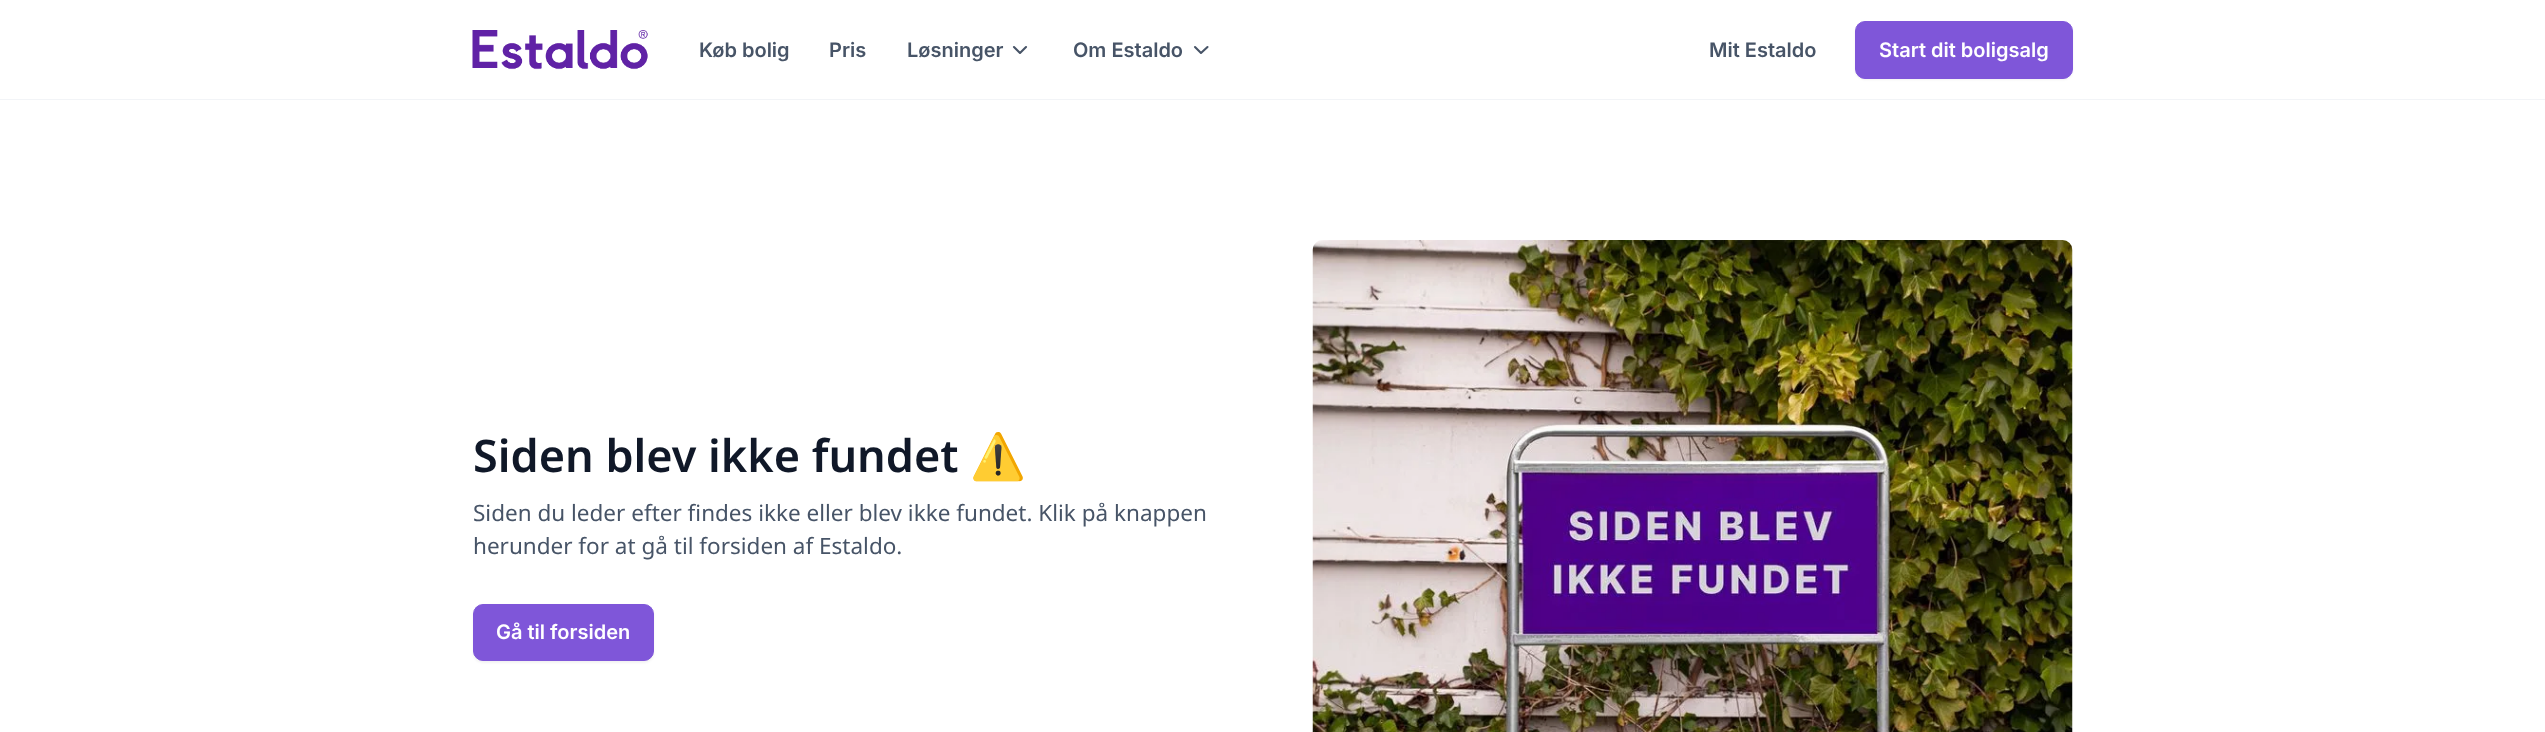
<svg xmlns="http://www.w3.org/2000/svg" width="2545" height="732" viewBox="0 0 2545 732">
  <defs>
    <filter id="blur1" x="-50%" y="-200%" width="200%" height="500%"><feGaussianBlur stdDeviation="1"/></filter>
  </defs>
  <rect width="100%" height="100%" fill="#ffffff"/>
  <rect x="0" y="99" width="2545" height="1" fill="#f2f4f7"/>
  <image x="472" y="30" width="176" height="40" href="img1.png"/>
  <text x="699" y="57" font-family="Inter" font-size="20" font-weight="600" fill="#475467">Køb bolig</text>
  <text x="829" y="57" font-family="Inter" font-size="20" font-weight="600" fill="#475467">Pris</text>
  <text x="907" y="57" font-family="Inter" font-size="20" font-weight="600" fill="#475467">Løsninger</text>
  <path d="M1014 47L1020 53L1026 47" fill="none" stroke="#475467" stroke-width="2.1" stroke-linecap="round" stroke-linejoin="round"/>
  <text x="1073" y="57" font-family="Inter" font-size="20" font-weight="600" fill="#475467">Om Estaldo</text>
  <path d="M1195 47L1201 53L1207.5 47" fill="none" stroke="#475467" stroke-width="2.1" stroke-linecap="round" stroke-linejoin="round"/>
  <text x="1709" y="57" font-family="Inter" font-size="20" font-weight="600" fill="#475467">Mit Estaldo</text>
  <rect x="1855" y="23" width="218" height="57" rx="10" fill="#101828" fill-opacity="0.05" filter="url(#blur1)"/>
  <rect x="1855.5" y="21.5" width="217" height="57" rx="9.5" fill="#7f56d9" stroke="#7f56d9"/>
  <text x="1879" y="57" font-family="Inter" font-size="20" font-weight="600" fill="#ffffff">Start dit boligsalg</text>
  <text x="473" y="472" font-family="Noto Sans" font-size="45" font-weight="600" fill="#101828">Siden blev ikke fundet</text>
  <text x="970" y="472" font-family="Noto Color Emoji" font-size="45" font-weight="bold" fill="#101828">⚠️</text>
  <text x="473" y="521" font-family="Noto Sans" font-size="22.5" fill="#475467">Siden du leder efter findes ikke eller blev ikke fundet. Klik på knappen</text>
  <text x="473" y="554" font-family="Noto Sans" font-size="22.5" fill="#475467">herunder for at gå til forsiden af Estaldo.</text>
  <rect x="473" y="605" width="181" height="58" rx="10" fill="#101828" fill-opacity="0.05" filter="url(#blur1)"/>
  <rect x="473.5" y="604.5" width="180" height="56" rx="9.5" fill="#7f56d9" stroke="#7f56d9"/>
  <text x="496" y="639" font-family="Inter" font-size="20" font-weight="600" fill="#ffffff">Gå til forsiden</text>
  <image x="1312" y="240" width="761" height="492" href="img2.png"/>
</svg>
